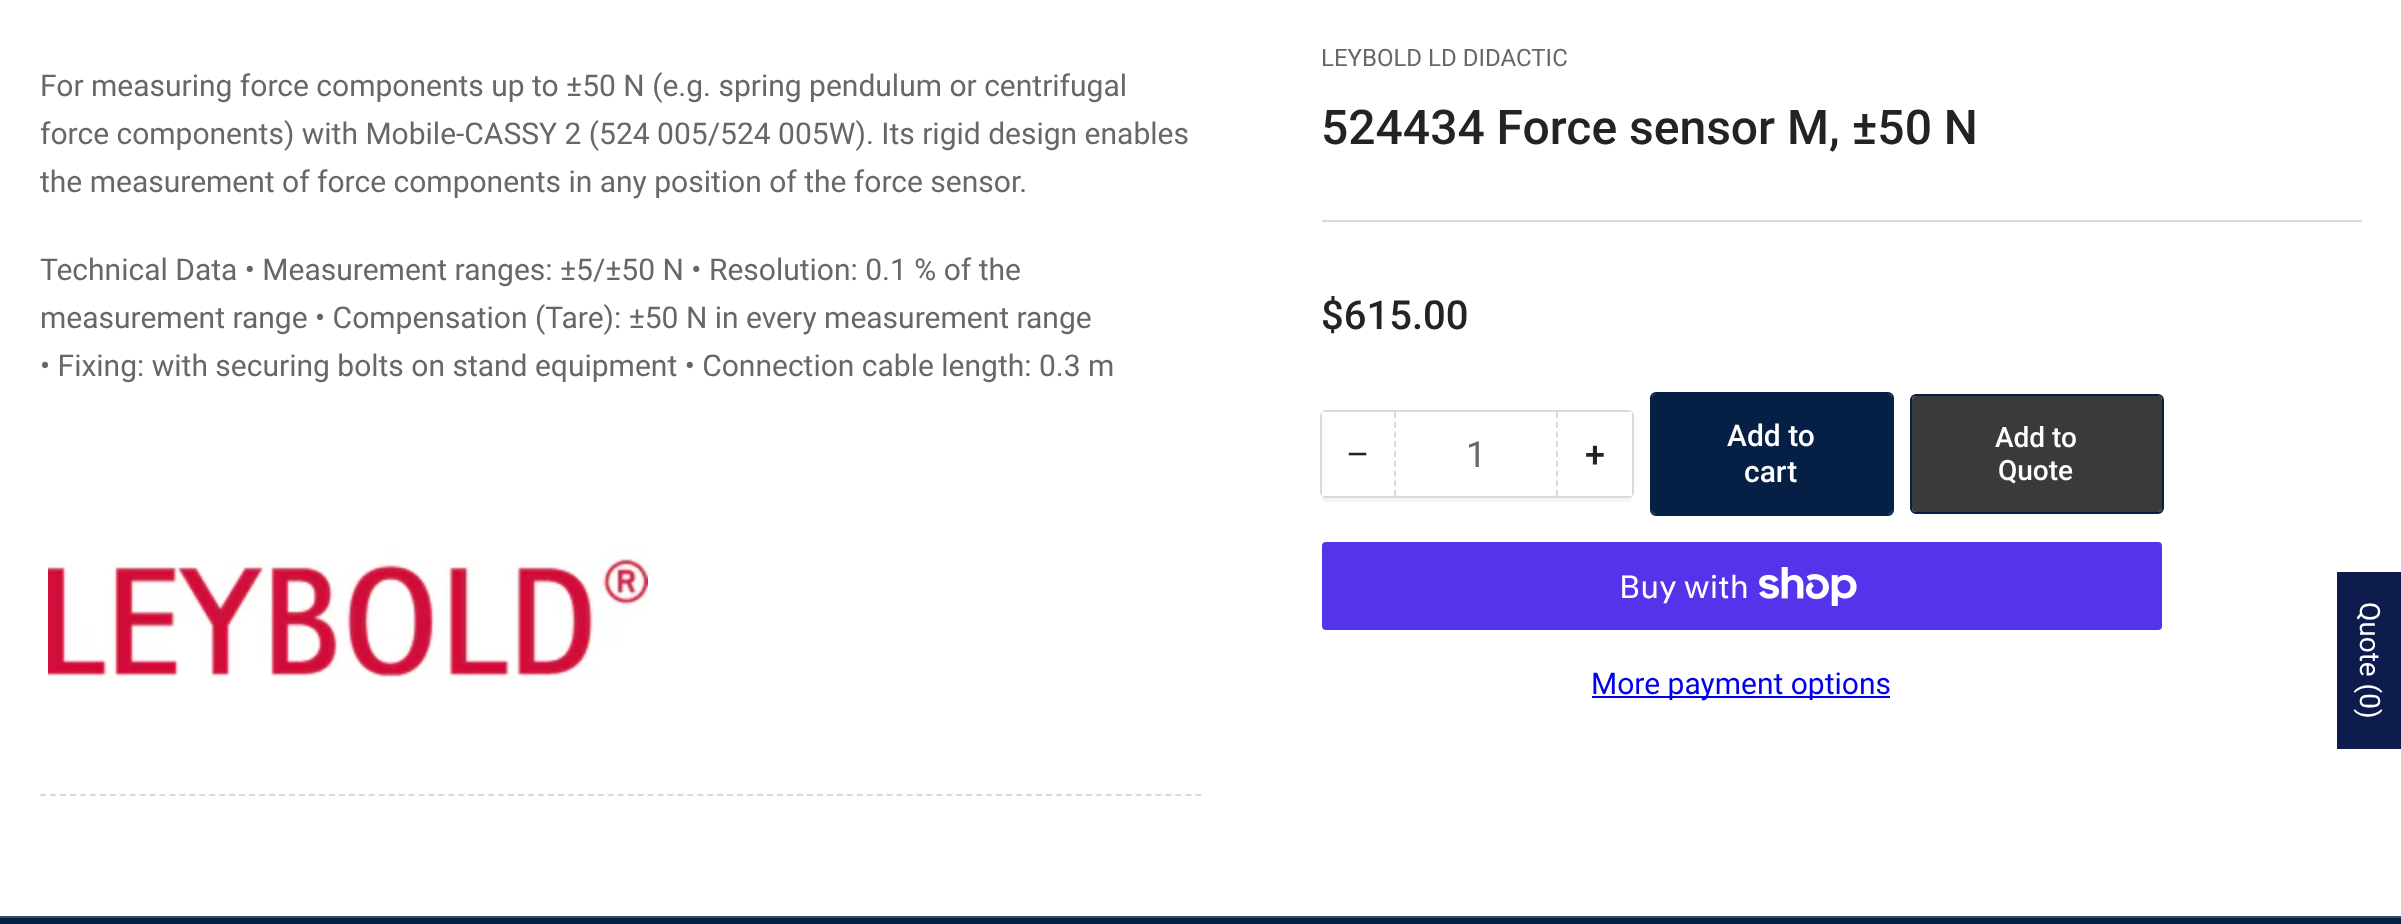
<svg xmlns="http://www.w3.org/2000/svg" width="2401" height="924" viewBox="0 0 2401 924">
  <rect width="100%" height="100%" fill="#ffffff"/>
  <path d="M40 795H1202" fill="none" stroke="#dadada" stroke-width="2" stroke-dasharray="6 3.96"/>
  <text x="40" y="96" font-family="Roboto" font-size="30" fill="#676767">For measuring force components up to ±50 N (e.g. spring pendulum or centrifugal</text>
  <text x="40" y="144" font-family="Roboto" font-size="30" fill="#676767">force components) with Mobile-CASSY 2 (524 005/524 005W). Its rigid design enables</text>
  <text x="40" y="192" font-family="Roboto" font-size="30" fill="#676767">the measurement of force components in any position of the force sensor.</text>
  <text x="40" y="280" font-family="Roboto" font-size="30" fill="#676767">Technical Data • Measurement ranges: ±5/±50 N • Resolution: 0.1 % of the</text>
  <text x="40" y="328" font-family="Roboto" font-size="30" fill="#676767">measurement range • Compensation (Tare): ±50 N in every measurement range</text>
  <text x="40" y="376" font-family="Roboto" font-size="30" fill="#676767">• Fixing: with securing bolts on stand equipment • Connection cable length: 0.3 m</text>
  <image x="48" y="550" width="600" height="129" href="img1.png"/>
  <rect x="1322" y="220" width="1040" height="2" fill="#dadada"/>
  <text x="1321" y="66" font-family="Roboto" font-size="24" fill="#676767">LEYBOLD LD DIDACTIC</text>
  <text x="1321" y="144" font-family="Roboto" font-size="48" font-weight="500" fill="#232323">524434 Force sensor M, ±50 N</text>
  <text x="1321" y="329" font-family="Roboto" font-size="40" font-weight="500" fill="#232323">$615.00</text>
  <path d="M1322 492V498C1322 500 1324 502 1326 502H1628C1630 502 1632 500 1632 498V492C1632 494 1630 496 1628 496H1326C1324 496 1322 494 1322 492Z" fill="#f4f4f4"/>
  <rect x="1321" y="411" width="312" height="86" rx="5" fill="none" stroke="#dadada" stroke-width="2"/>
  <rect x="1322" y="412" width="4" height="84" fill="#ffffff"/>
  <text x="1347" y="466" font-family="Liberation Sans" font-size="36" fill="#232323">−</text>
  <path d="M1557 412V496" fill="none" stroke="#dadada" stroke-width="2" stroke-dasharray="6 3.76"/>
  <path d="M1395 412V496" fill="none" stroke="#dadada" stroke-width="2" stroke-dasharray="6 3.76"/>
  <text x="1466" y="467" font-family="Roboto" font-size="36" fill="#676767">1</text>
  <rect x="1628" y="412" width="4" height="84" fill="#ffffff"/>
  <text x="1585" y="467" font-family="Roboto" font-size="36" font-weight="500" fill="#232323">+</text>
  <rect x="1651" y="393" width="242" height="122" rx="5" fill="none" stroke="#052044" stroke-width="2"/>
  <rect x="1652" y="394" width="240" height="120" rx="4" fill="#052044"/>
  <text x="1727" y="446" font-family="Roboto" font-size="30" font-weight="500" fill="#ffffff">Add to</text>
  <text x="1744" y="482" font-family="Roboto" font-size="30" font-weight="500" fill="#ffffff">cart</text>
  <rect x="1911" y="395" width="252" height="118" rx="5" fill="none" stroke="#052044" stroke-width="2"/>
  <rect x="1912" y="396" width="250" height="116" rx="4" fill="#3a3a3a"/>
  <text x="1995" y="447" font-family="Roboto" font-size="28" font-weight="500" fill="#ffffff">Add to</text>
  <text x="1998" y="480" font-family="Roboto" font-size="28" font-weight="500" fill="#ffffff">Quote</text>
  <rect x="1322" y="542" width="840" height="88" rx="4" fill="#5433eb"/>
  <text x="1619" y="598" font-family="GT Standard" font-size="32" fill="#ffffff">Buy with</text>
  <image x="1759" y="567" width="98" height="39" href="img2.png"/>
  <rect x="1592" y="696" width="298" height="2" fill="#0000ee"/>
  <text x="1591" y="694" font-family="Roboto" font-size="30" fill="#0000ee">More payment options</text>
  <rect x="2337" y="572" width="64" height="177" fill="#0e1b4d"/>
  <text x="2360" y="602" transform="rotate(90 2360 602)" font-family="Roboto" font-size="28" fill="#ffffff">Quote (0)</text>
  <rect x="0" y="918" width="2401" height="6" fill="#052044"/>
  <rect x="0" y="916" width="2401" height="2" fill="#374d69"/>
</svg>
